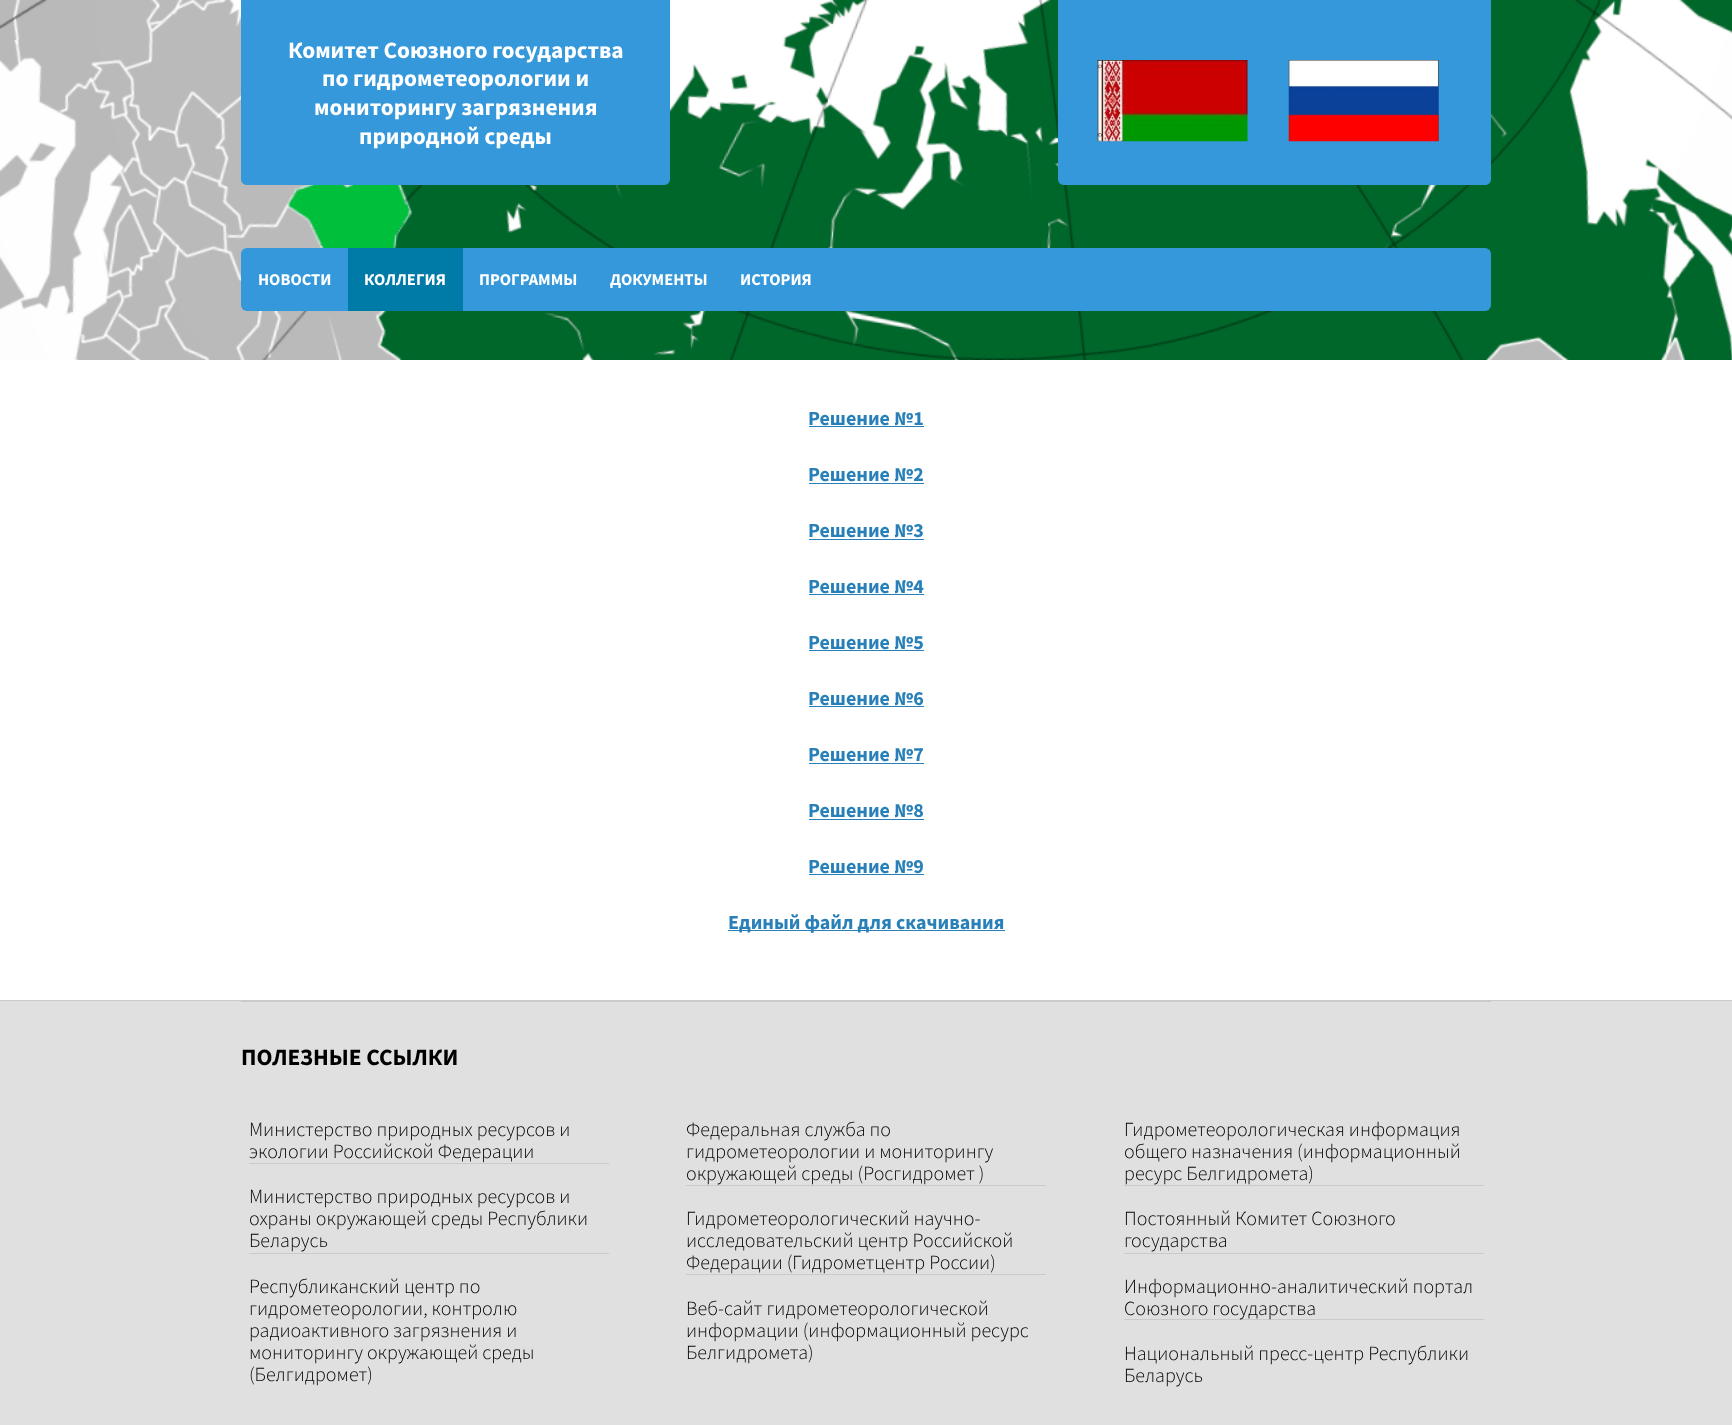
<svg xmlns="http://www.w3.org/2000/svg" width="1732" height="1425" viewBox="0 0 1732 1425">
  <rect width="100%" height="100%" fill="#ffffff"/>
  <image x="0" y="0" width="1732" height="360" href="img1.png"/>
  <path d="M241 0H670V179C670 182.5 667.5 185 664 185H247C243.5 185 241 182.5 241 179Z" fill="#3498db"/>
  <text x="288" y="58" font-family="Source Sans Pro" font-size="23.4" font-weight="bold" fill="#ffffff">Комитет Союзного государства</text>
  <text x="322" y="86" font-family="Source Sans Pro" font-size="23.4" font-weight="bold" fill="#ffffff">по гидрометеорологии и</text>
  <text x="314" y="115" font-family="Source Sans Pro" font-size="23.4" font-weight="bold" fill="#ffffff">мониторингу загрязнения</text>
  <text x="359" y="144" font-family="Source Sans Pro" font-size="23.4" font-weight="bold" fill="#ffffff">природной среды</text>
  <path d="M1058 0H1491V179C1491 182.5 1488.5 185 1485 185H1064C1060.5 185 1058 182.5 1058 179Z" fill="#3498db"/>
  <image x="1097" y="60" width="151" height="82" href="img2.png"/>
  <image x="1288" y="60" width="151" height="82" href="img3.png"/>
  <rect x="241" y="248" width="1250" height="63" rx="6" fill="#3498db"/>
  <text x="258" y="285" font-family="Source Sans Pro" font-size="16.5" font-weight="bold" fill="#ffffff">НОВОСТИ</text>
  <rect x="348" y="248" width="115" height="63" fill="#007ba7"/>
  <text x="364" y="285" font-family="Source Sans Pro" font-size="16.5" font-weight="bold" fill="#ffffff">КОЛЛЕГИЯ</text>
  <text x="479" y="285" font-family="Source Sans Pro" font-size="16.5" font-weight="bold" fill="#ffffff">ПРОГРАММЫ</text>
  <text x="610" y="285" font-family="Source Sans Pro" font-size="16.5" font-weight="bold" fill="#ffffff">ДОКУМЕНТЫ</text>
  <text x="740" y="285" font-family="Source Sans Pro" font-size="16.5" font-weight="bold" fill="#ffffff">ИСТОРИЯ</text>
  <text x="808" y="425" font-family="Source Sans Pro" font-size="20" font-weight="bold" fill="#2980b9">Решение №1</text>
  <rect x="809" y="426" width="115" height="1" fill="#2980b9"/>
  <text x="808" y="481" font-family="Source Sans Pro" font-size="20" font-weight="bold" fill="#2980b9">Решение №2</text>
  <rect x="809" y="483" width="115" height="1" fill="#2980b9"/>
  <text x="808" y="537" font-family="Source Sans Pro" font-size="20" font-weight="bold" fill="#2980b9">Решение №3</text>
  <rect x="809" y="539" width="115" height="1" fill="#2980b9"/>
  <text x="808" y="593" font-family="Source Sans Pro" font-size="20" font-weight="bold" fill="#2980b9">Решение №4</text>
  <rect x="809" y="594" width="115" height="1" fill="#2980b9"/>
  <text x="808" y="649" font-family="Source Sans Pro" font-size="20" font-weight="bold" fill="#2980b9">Решение №5</text>
  <rect x="809" y="650" width="115" height="1" fill="#2980b9"/>
  <text x="808" y="705" font-family="Source Sans Pro" font-size="20" font-weight="bold" fill="#2980b9">Решение №6</text>
  <rect x="809" y="706" width="115" height="1" fill="#2980b9"/>
  <text x="808" y="761" font-family="Source Sans Pro" font-size="20" font-weight="bold" fill="#2980b9">Решение №7</text>
  <rect x="809" y="763" width="115" height="1" fill="#2980b9"/>
  <text x="808" y="817" font-family="Source Sans Pro" font-size="20" font-weight="bold" fill="#2980b9">Решение №8</text>
  <rect x="809" y="819" width="115" height="1" fill="#2980b9"/>
  <text x="808" y="873" font-family="Source Sans Pro" font-size="20" font-weight="bold" fill="#2980b9">Решение №9</text>
  <rect x="809" y="874" width="115" height="1" fill="#2980b9"/>
  <rect x="728" y="930" width="277" height="1" fill="#2980b9"/>
  <text x="728" y="929" font-family="Source Sans Pro" font-size="20" font-weight="bold" fill="#2980b9">Единый файл для скачивания</text>
  <rect x="0" y="1001" width="1732" height="424" fill="#e0e0e0"/>
  <rect x="0" y="1000" width="1732" height="1" fill="#cacaca"/>
  <rect x="241" y="1001" width="1250" height="1" fill="#cacaca"/>
  <text x="241" y="1065" font-family="Source Sans Pro" font-size="23.4" font-weight="bold" fill="#000000">ПОЛЕЗНЫЕ ССЫЛКИ</text>
  <text x="249" y="1136" font-family="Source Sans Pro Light" font-size="20" font-weight="300" fill="#000000">Министерство природных ресурсов и</text>
  <text x="249" y="1158" font-family="Source Sans Pro Light" font-size="20" font-weight="300" fill="#000000">экологии Российской Федерации</text>
  <rect x="249" y="1163" width="360" height="1" fill="#cacaca"/>
  <text x="249" y="1203" font-family="Source Sans Pro Light" font-size="20" font-weight="300" fill="#000000">Министерство природных ресурсов и</text>
  <text x="249" y="1225" font-family="Source Sans Pro Light" font-size="20" font-weight="300" fill="#000000">охраны окружающей среды Республики</text>
  <text x="249" y="1247" font-family="Source Sans Pro Light" font-size="20" font-weight="300" fill="#000000">Беларусь</text>
  <rect x="249" y="1253" width="360" height="1" fill="#cacaca"/>
  <text x="249" y="1293" font-family="Source Sans Pro Light" font-size="20" font-weight="300" fill="#000000">Республиканский центр по</text>
  <text x="249" y="1315" font-family="Source Sans Pro Light" font-size="20" font-weight="300" fill="#000000">гидрометеорологии, контролю</text>
  <text x="249" y="1337" font-family="Source Sans Pro Light" font-size="20" font-weight="300" fill="#000000">радиоактивного загрязнения и</text>
  <text x="249" y="1359" font-family="Source Sans Pro Light" font-size="20" font-weight="300" fill="#000000">мониторингу окружающей среды</text>
  <text x="249" y="1381" font-family="Source Sans Pro Light" font-size="20" font-weight="300" fill="#000000">(Белгидромет)</text>
  <text x="686" y="1136" font-family="Source Sans Pro Light" font-size="20" font-weight="300" fill="#000000">Федеральная служба по</text>
  <text x="686" y="1158" font-family="Source Sans Pro Light" font-size="20" font-weight="300" fill="#000000">гидрометеорологии и мониторингу</text>
  <text x="686" y="1180" font-family="Source Sans Pro Light" font-size="20" font-weight="300" fill="#000000">окружающей среды (Росгидромет )</text>
  <rect x="686" y="1185" width="360" height="1" fill="#cacaca"/>
  <text x="686" y="1225" font-family="Source Sans Pro Light" font-size="20" font-weight="300" fill="#000000">Гидрометеорологический научно-</text>
  <text x="686" y="1247" font-family="Source Sans Pro Light" font-size="20" font-weight="300" fill="#000000">исследовательский центр Российской</text>
  <text x="686" y="1269" font-family="Source Sans Pro Light" font-size="20" font-weight="300" fill="#000000">Федерации (Гидрометцентр России)</text>
  <rect x="686" y="1274" width="360" height="1" fill="#cacaca"/>
  <text x="686" y="1315" font-family="Source Sans Pro Light" font-size="20" font-weight="300" fill="#000000">Веб-сайт гидрометеорологической</text>
  <text x="686" y="1337" font-family="Source Sans Pro Light" font-size="20" font-weight="300" fill="#000000">информации (информационный ресурс</text>
  <text x="686" y="1359" font-family="Source Sans Pro Light" font-size="20" font-weight="300" fill="#000000">Белгидромета)</text>
  <text x="1124" y="1136" font-family="Source Sans Pro Light" font-size="20" font-weight="300" fill="#000000">Гидрометеорологическая информация</text>
  <text x="1124" y="1158" font-family="Source Sans Pro Light" font-size="20" font-weight="300" fill="#000000">общего назначения (информационный</text>
  <text x="1124" y="1180" font-family="Source Sans Pro Light" font-size="20" font-weight="300" fill="#000000">ресурс Белгидромета)</text>
  <rect x="1124" y="1185" width="360" height="1" fill="#cacaca"/>
  <text x="1124" y="1225" font-family="Source Sans Pro Light" font-size="20" font-weight="300" fill="#000000">Постоянный Комитет Союзного</text>
  <text x="1124" y="1247" font-family="Source Sans Pro Light" font-size="20" font-weight="300" fill="#000000">государства</text>
  <rect x="1124" y="1253" width="360" height="1" fill="#cacaca"/>
  <text x="1124" y="1293" font-family="Source Sans Pro Light" font-size="20" font-weight="300" fill="#000000">Информационно-аналитический портал</text>
  <rect x="1124" y="1319" width="360" height="1" fill="#cacaca"/>
  <text x="1124" y="1315" font-family="Source Sans Pro Light" font-size="20" font-weight="300" fill="#000000">Союзного государства</text>
  <text x="1124" y="1360" font-family="Source Sans Pro Light" font-size="20" font-weight="300" fill="#000000">Национальный пресс-центр Республики</text>
  <text x="1124" y="1382" font-family="Source Sans Pro Light" font-size="20" font-weight="300" fill="#000000">Беларусь</text>
</svg>
